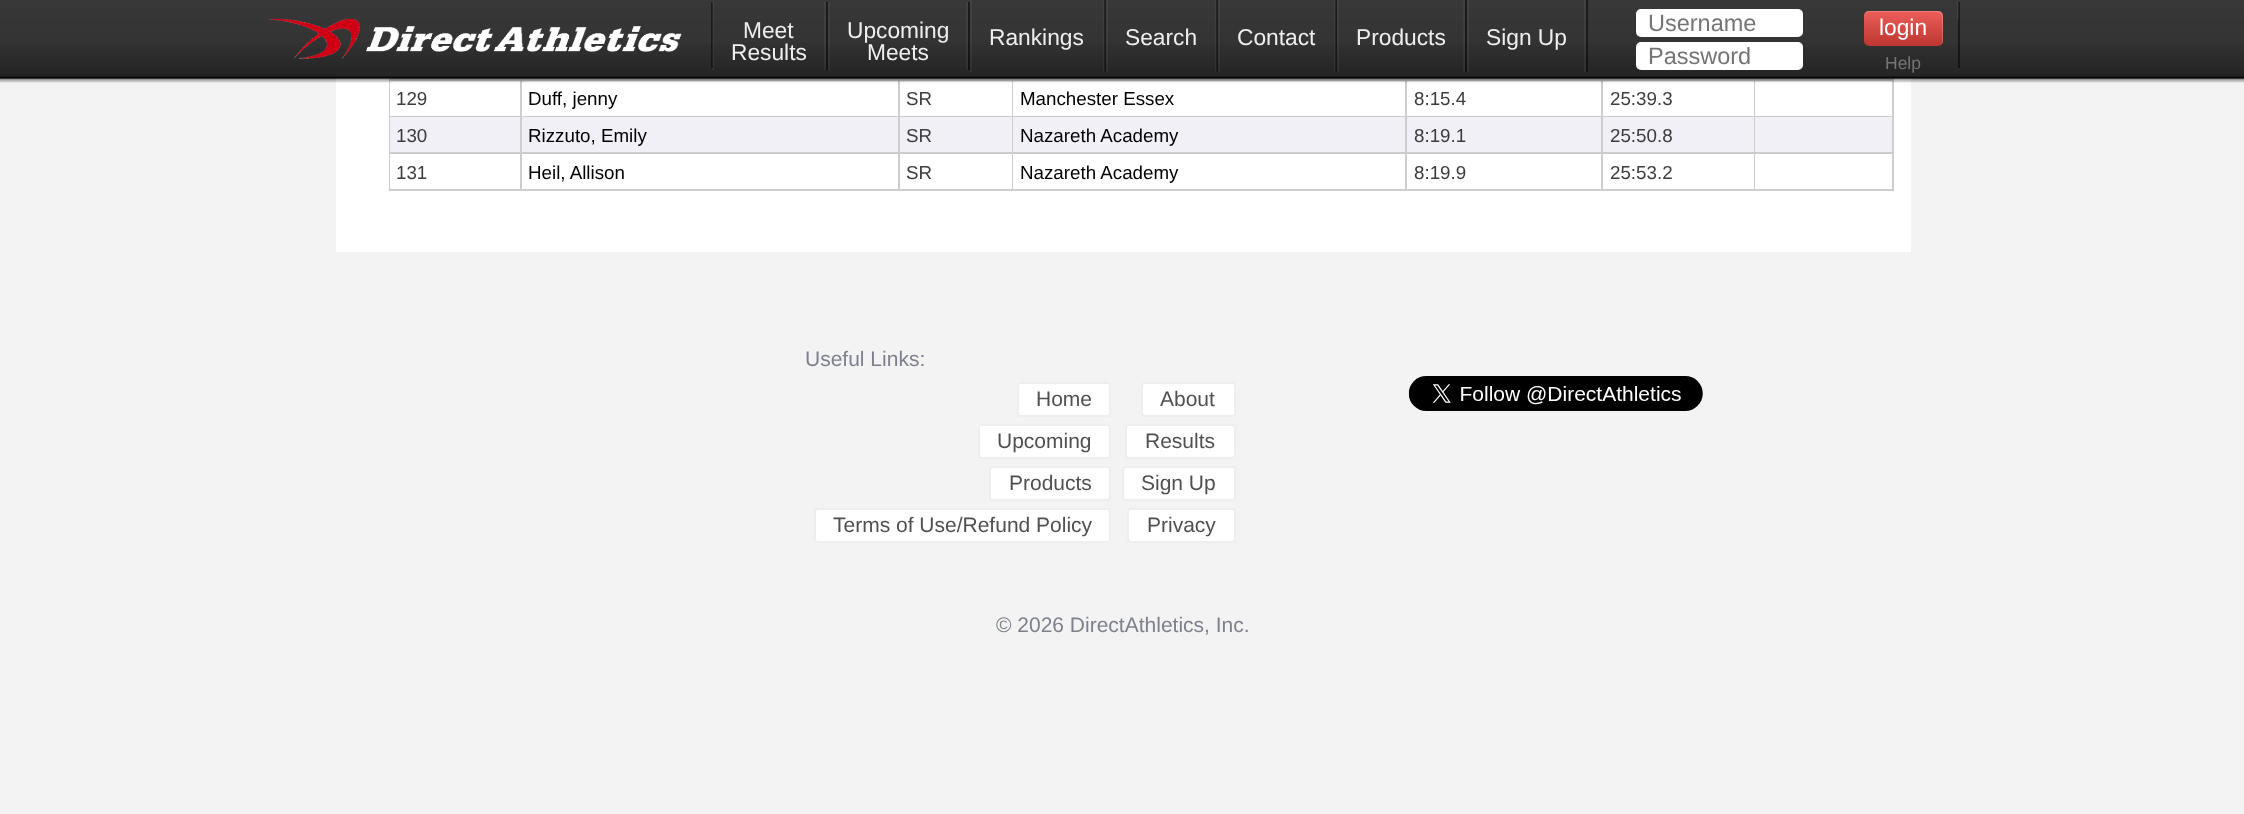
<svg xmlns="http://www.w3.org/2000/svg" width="2244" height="814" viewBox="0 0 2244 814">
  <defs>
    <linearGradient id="g1" gradientUnits="userSpaceOnUse" x1="1903" y1="10" x2="1903" y2="46"><stop offset="0" stop-color="#ee5f5b"/><stop offset="1" stop-color="#bd362f"/></linearGradient>
  </defs>
  <rect width="100%" height="100%" fill="#f3f3f3"/>
  <rect x="336" y="78" width="1575" height="174" fill="#ffffff"/>
  <rect x="389" y="78" width="1505" height="113" fill="#cdcdcd"/>
  <rect x="390" y="81" width="130" height="35" fill="#ffffff"/>
  <rect x="522" y="81" width="376" height="35" fill="#ffffff"/>
  <rect x="900" y="81" width="112" height="35" fill="#ffffff"/>
  <rect x="1013" y="81" width="392" height="35" fill="#ffffff"/>
  <rect x="1407" y="81" width="194" height="35" fill="#ffffff"/>
  <rect x="1603" y="81" width="151" height="35" fill="#ffffff"/>
  <rect x="1755" y="81" width="137" height="35" fill="#ffffff"/>
  <image x="0" y="0" width="2244" height="83" href="img1.png"/>
  <image x="267" y="18" width="415" height="41" href="img2.png"/>
  <rect x="711" y="2" width="2" height="66" fill="#000000" fill-opacity="0.5"/>
  <rect x="826" y="2" width="2" height="68" fill="#000000" fill-opacity="0.5"/>
  <rect x="824" y="2" width="2" height="68" fill="#ffffff" fill-opacity="0.05"/>
  <rect x="712" y="2" width="2" height="68" fill="#ffffff" fill-opacity="0.05"/>
  <text x="743" y="38" font-family="Liberation Sans" font-size="22.75" fill="#eeeeee">Meet</text>
  <text x="731" y="60" font-family="Liberation Sans" font-size="22.75" fill="#eeeeee">Results</text>
  <rect x="968" y="2" width="2" height="68" fill="#000000" fill-opacity="0.5"/>
  <rect x="966" y="2" width="2" height="68" fill="#ffffff" fill-opacity="0.05"/>
  <rect x="828" y="2" width="2" height="68" fill="#ffffff" fill-opacity="0.05"/>
  <text x="847" y="38" font-family="Liberation Sans" font-size="22.75" fill="#eeeeee">Upcoming</text>
  <text x="867" y="60" font-family="Liberation Sans" font-size="22.75" fill="#eeeeee">Meets</text>
  <rect x="1104" y="0" width="2" height="72" fill="#000000" fill-opacity="0.5"/>
  <rect x="1103" y="0" width="2" height="72" fill="#ffffff" fill-opacity="0.05"/>
  <rect x="970" y="0" width="2" height="72" fill="#ffffff" fill-opacity="0.05"/>
  <text x="989" y="45" font-family="Liberation Sans" font-size="22.75" fill="#eeeeee">Rankings</text>
  <rect x="1216" y="0" width="2" height="72" fill="#000000" fill-opacity="0.5"/>
  <rect x="1215" y="0" width="2" height="72" fill="#ffffff" fill-opacity="0.05"/>
  <rect x="1106" y="0" width="2" height="72" fill="#ffffff" fill-opacity="0.05"/>
  <text x="1125" y="45" font-family="Liberation Sans" font-size="22.75" fill="#eeeeee">Search</text>
  <rect x="1335" y="0" width="2" height="72" fill="#000000" fill-opacity="0.5"/>
  <rect x="1334" y="0" width="2" height="72" fill="#ffffff" fill-opacity="0.05"/>
  <rect x="1218" y="0" width="2" height="72" fill="#ffffff" fill-opacity="0.05"/>
  <text x="1237" y="45" font-family="Liberation Sans" font-size="22.75" fill="#eeeeee">Contact</text>
  <rect x="1465" y="0" width="2" height="72" fill="#000000" fill-opacity="0.5"/>
  <rect x="1463" y="0" width="2" height="72" fill="#ffffff" fill-opacity="0.05"/>
  <rect x="1337" y="0" width="2" height="72" fill="#ffffff" fill-opacity="0.05"/>
  <text x="1356" y="45" font-family="Liberation Sans" font-size="22.75" fill="#eeeeee">Products</text>
  <rect x="1586" y="0" width="2" height="72" fill="#000000" fill-opacity="0.5"/>
  <rect x="1584" y="0" width="2" height="72" fill="#ffffff" fill-opacity="0.05"/>
  <rect x="1467" y="0" width="2" height="72" fill="#ffffff" fill-opacity="0.05"/>
  <text x="1486" y="45" font-family="Liberation Sans" font-size="22.75" fill="#eeeeee">Sign Up</text>
  <rect x="1958" y="2" width="2" height="66" fill="#000000" fill-opacity="0.5"/>
  <rect x="1957" y="2" width="2" height="17" fill="#ffffff" fill-opacity="0.05"/>
  <rect x="1636" y="9" width="167" height="28" rx="5" fill="#ffffff"/>
  <text x="1648" y="31" font-family="Liberation Sans" font-size="23.5" fill="#757575">Username</text>
  <rect x="1864" y="11" width="79" height="35" rx="5" fill="url(#g1)"/>
  <path d="M1869 12H1937C1940 12 1942 15 1942 18V42L1941 45C1942 44 1943 42 1943 41V16C1943 13 1941 11 1938 11H1869C1866 11 1864 13 1864 16V18C1864 15 1866 12 1869 12Z" fill="#ffffff" fill-opacity="0.2"/>
  <text x="1879" y="35" font-family="Liberation Sans" font-size="22.75" fill="#ffffff">login</text>
  <rect x="1636" y="42" width="167" height="28" rx="5" fill="#ffffff"/>
  <text x="1648" y="64" font-family="Liberation Sans" font-size="23.5" fill="#757575">Password</text>
  <text x="1885" y="69" font-family="Liberation Sans" font-size="17.5" fill="#757575">Help</text>
  <text x="396" y="105" font-family="Liberation Sans" font-size="18.75" fill="#3d3d3d">129</text>
  <text x="528" y="105" font-family="Liberation Sans" font-size="18.75" fill="#000000">Duff, jenny</text>
  <text x="906" y="105" font-family="Liberation Sans" font-size="18.75" fill="#3d3d3d">SR</text>
  <text x="1020" y="105" font-family="Liberation Sans" font-size="18.75" fill="#000000">Manchester Essex</text>
  <text x="1414" y="105" font-family="Liberation Sans" font-size="18.75" fill="#3d3d3d">8:15.4</text>
  <text x="1610" y="105" font-family="Liberation Sans" font-size="18.75" fill="#3d3d3d">25:39.3</text>
  <rect x="390" y="117" width="130" height="35" fill="#f0f0f6"/>
  <text x="396" y="142" font-family="Liberation Sans" font-size="18.75" fill="#3d3d3d">130</text>
  <rect x="522" y="117" width="376" height="35" fill="#f0f0f6"/>
  <text x="528" y="142" font-family="Liberation Sans" font-size="18.75" fill="#000000">Rizzuto, Emily</text>
  <rect x="900" y="117" width="112" height="35" fill="#f0f0f6"/>
  <text x="906" y="142" font-family="Liberation Sans" font-size="18.75" fill="#3d3d3d">SR</text>
  <rect x="1013" y="117" width="392" height="35" fill="#f0f0f6"/>
  <text x="1020" y="142" font-family="Liberation Sans" font-size="18.75" fill="#000000">Nazareth Academy</text>
  <rect x="1407" y="117" width="194" height="35" fill="#f0f0f6"/>
  <text x="1414" y="142" font-family="Liberation Sans" font-size="18.75" fill="#3d3d3d">8:19.1</text>
  <rect x="1603" y="117" width="151" height="35" fill="#f0f0f6"/>
  <text x="1610" y="142" font-family="Liberation Sans" font-size="18.75" fill="#3d3d3d">25:50.8</text>
  <rect x="1755" y="117" width="137" height="35" fill="#f0f0f6"/>
  <rect x="390" y="154" width="130" height="35" fill="#ffffff"/>
  <text x="396" y="179" font-family="Liberation Sans" font-size="18.75" fill="#3d3d3d">131</text>
  <rect x="522" y="154" width="376" height="35" fill="#ffffff"/>
  <text x="528" y="179" font-family="Liberation Sans" font-size="18.75" fill="#000000">Heil, Allison</text>
  <rect x="900" y="154" width="112" height="35" fill="#ffffff"/>
  <text x="906" y="179" font-family="Liberation Sans" font-size="18.75" fill="#3d3d3d">SR</text>
  <rect x="1013" y="154" width="392" height="35" fill="#ffffff"/>
  <text x="1020" y="179" font-family="Liberation Sans" font-size="18.75" fill="#000000">Nazareth Academy</text>
  <rect x="1407" y="154" width="194" height="35" fill="#ffffff"/>
  <text x="1414" y="179" font-family="Liberation Sans" font-size="18.75" fill="#3d3d3d">8:19.9</text>
  <rect x="1603" y="154" width="151" height="35" fill="#ffffff"/>
  <text x="1610" y="179" font-family="Liberation Sans" font-size="18.75" fill="#3d3d3d">25:53.2</text>
  <rect x="1755" y="154" width="137" height="35" fill="#ffffff"/>
  <text x="805" y="366" font-family="Liberation Sans" font-size="21" fill="#7e818d">Useful Links:</text>
  <rect x="1018" y="383" width="92" height="33" rx="3" fill="#ffffff" stroke="#eeeeee" stroke-width="2"/>
  <text x="1036" y="406" font-family="Liberation Sans" font-size="21" fill="#505050">Home</text>
  <rect x="1142" y="383" width="93" height="33" rx="3" fill="#ffffff" stroke="#eeeeee" stroke-width="2"/>
  <text x="1160" y="406" font-family="Liberation Sans" font-size="21" fill="#505050">About</text>
  <rect x="979" y="425" width="131" height="33" rx="3" fill="#ffffff" stroke="#eeeeee" stroke-width="2"/>
  <text x="997" y="448" font-family="Liberation Sans" font-size="21" fill="#505050">Upcoming</text>
  <rect x="1126" y="425" width="109" height="33" rx="3" fill="#ffffff" stroke="#eeeeee" stroke-width="2"/>
  <text x="1145" y="448" font-family="Liberation Sans" font-size="21" fill="#505050">Results</text>
  <rect x="990" y="467" width="120" height="33" rx="3" fill="#ffffff" stroke="#eeeeee" stroke-width="2"/>
  <text x="1009" y="490" font-family="Liberation Sans" font-size="21" fill="#505050">Products</text>
  <rect x="1123" y="467" width="112" height="33" rx="3" fill="#ffffff" stroke="#eeeeee" stroke-width="2"/>
  <text x="1141" y="490" font-family="Liberation Sans" font-size="21" fill="#505050">Sign Up</text>
  <rect x="815" y="509" width="295" height="33" rx="3" fill="#ffffff" stroke="#eeeeee" stroke-width="2"/>
  <text x="833" y="532" font-family="Liberation Sans" font-size="21" fill="#505050">Terms of Use/Refund Policy</text>
  <rect x="1128" y="509" width="107" height="33" rx="3" fill="#ffffff" stroke="#eeeeee" stroke-width="2"/>
  <text x="1147" y="532" font-family="Liberation Sans" font-size="21" fill="#505050">Privacy</text>
  <image x="1408" y="376" width="295" height="35" href="img3.png"/>
  <text x="996" y="632" font-family="Liberation Sans" font-size="21" fill="#7e818d">© 2026 DirectAthletics, Inc.</text>
</svg>
